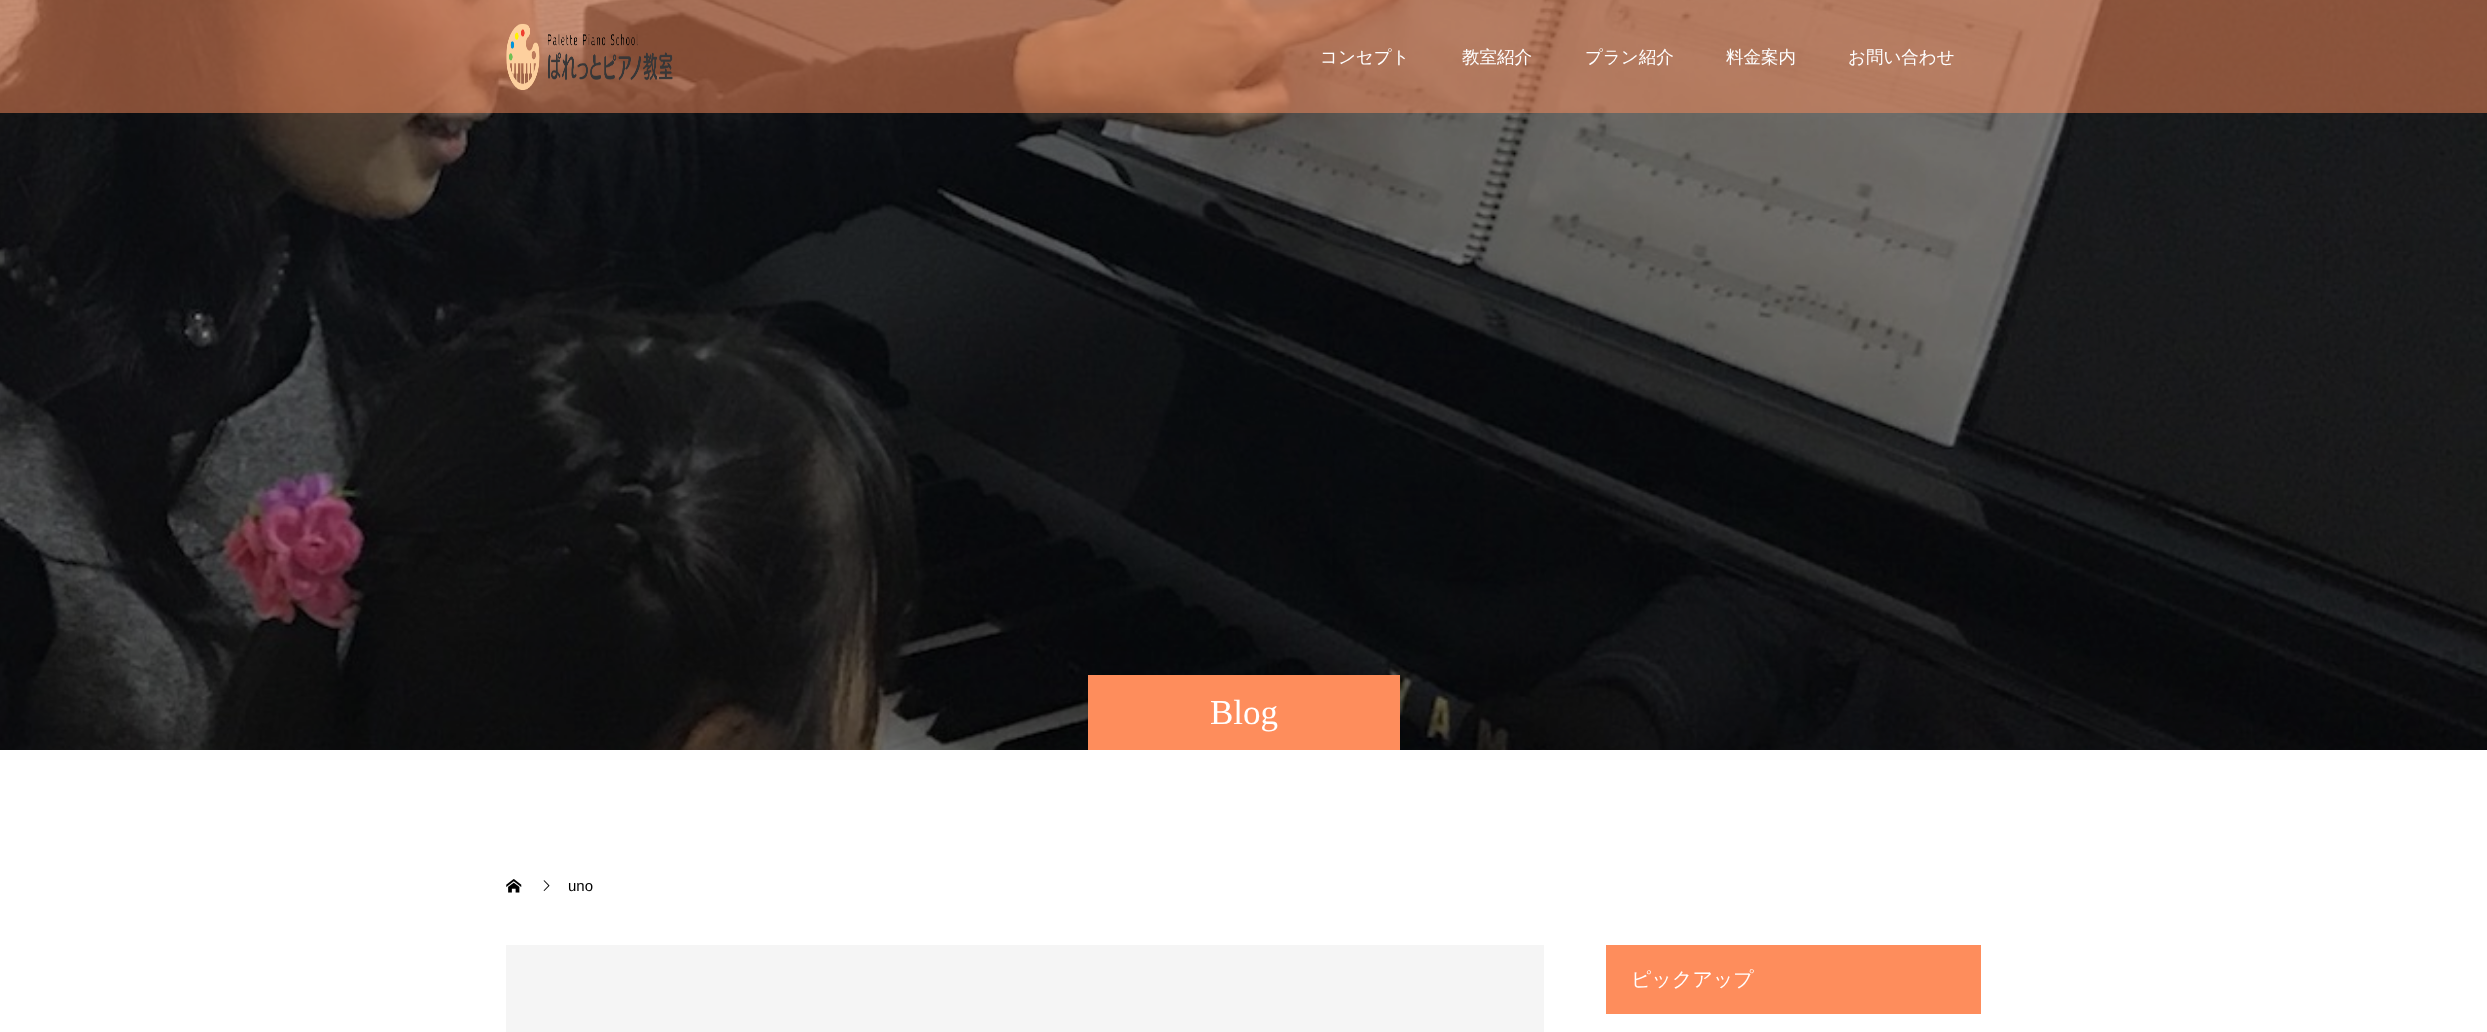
<svg xmlns="http://www.w3.org/2000/svg" width="2487" height="1032" viewBox="0 0 2487 1032">
  <rect width="100%" height="100%" fill="#ffffff"/>
  <image x="0" y="0" width="2487" height="750" href="img2.png"/>
  <rect x="0" y="0" width="2487" height="113" fill="#fe8d5c" fill-opacity="0.5"/>
  <image x="506" y="23" width="167" height="67" href="img1.png"/>
  <text x="1320" y="63" font-family="WenQuanYi Zen Hei" font-size="17.5" font-weight="500" fill="#ffffff">コンセプト</text>
  <text x="1462" y="63" font-family="WenQuanYi Zen Hei" font-size="17.5" font-weight="500" fill="#ffffff">教室紹介</text>
  <text x="1585" y="63" font-family="WenQuanYi Zen Hei" font-size="17.5" font-weight="500" fill="#ffffff">プラン紹介</text>
  <text x="1726" y="63" font-family="WenQuanYi Zen Hei" font-size="17.5" font-weight="500" fill="#ffffff">料金案内</text>
  <text x="1848" y="63" font-family="WenQuanYi Zen Hei" font-size="17.5" font-weight="500" fill="#ffffff">お問い合わせ</text>
  <rect x="1088" y="675" width="312" height="75" fill="#fe8d5c"/>
  <text x="1210" y="724" font-family="Liberation Serif" font-size="35" fill="#ffffff">Blog</text>
  <image x="506" y="879" width="16" height="14" href="img3.png"/>
  <image x="543" y="880" width="7" height="11" href="img4.png"/>
  <text x="568" y="891" font-family="Liberation Sans" font-size="15" fill="#000000">uno</text>
  <rect x="506" y="945" width="1038" height="87" fill="#f5f5f5"/>
  <rect x="1606" y="945" width="375" height="69" fill="#fe8d5c"/>
  <text x="1631" y="986" font-family="WenQuanYi Zen Hei" font-size="20" font-weight="500" fill="#ffffff">ピックアップ</text>
</svg>
